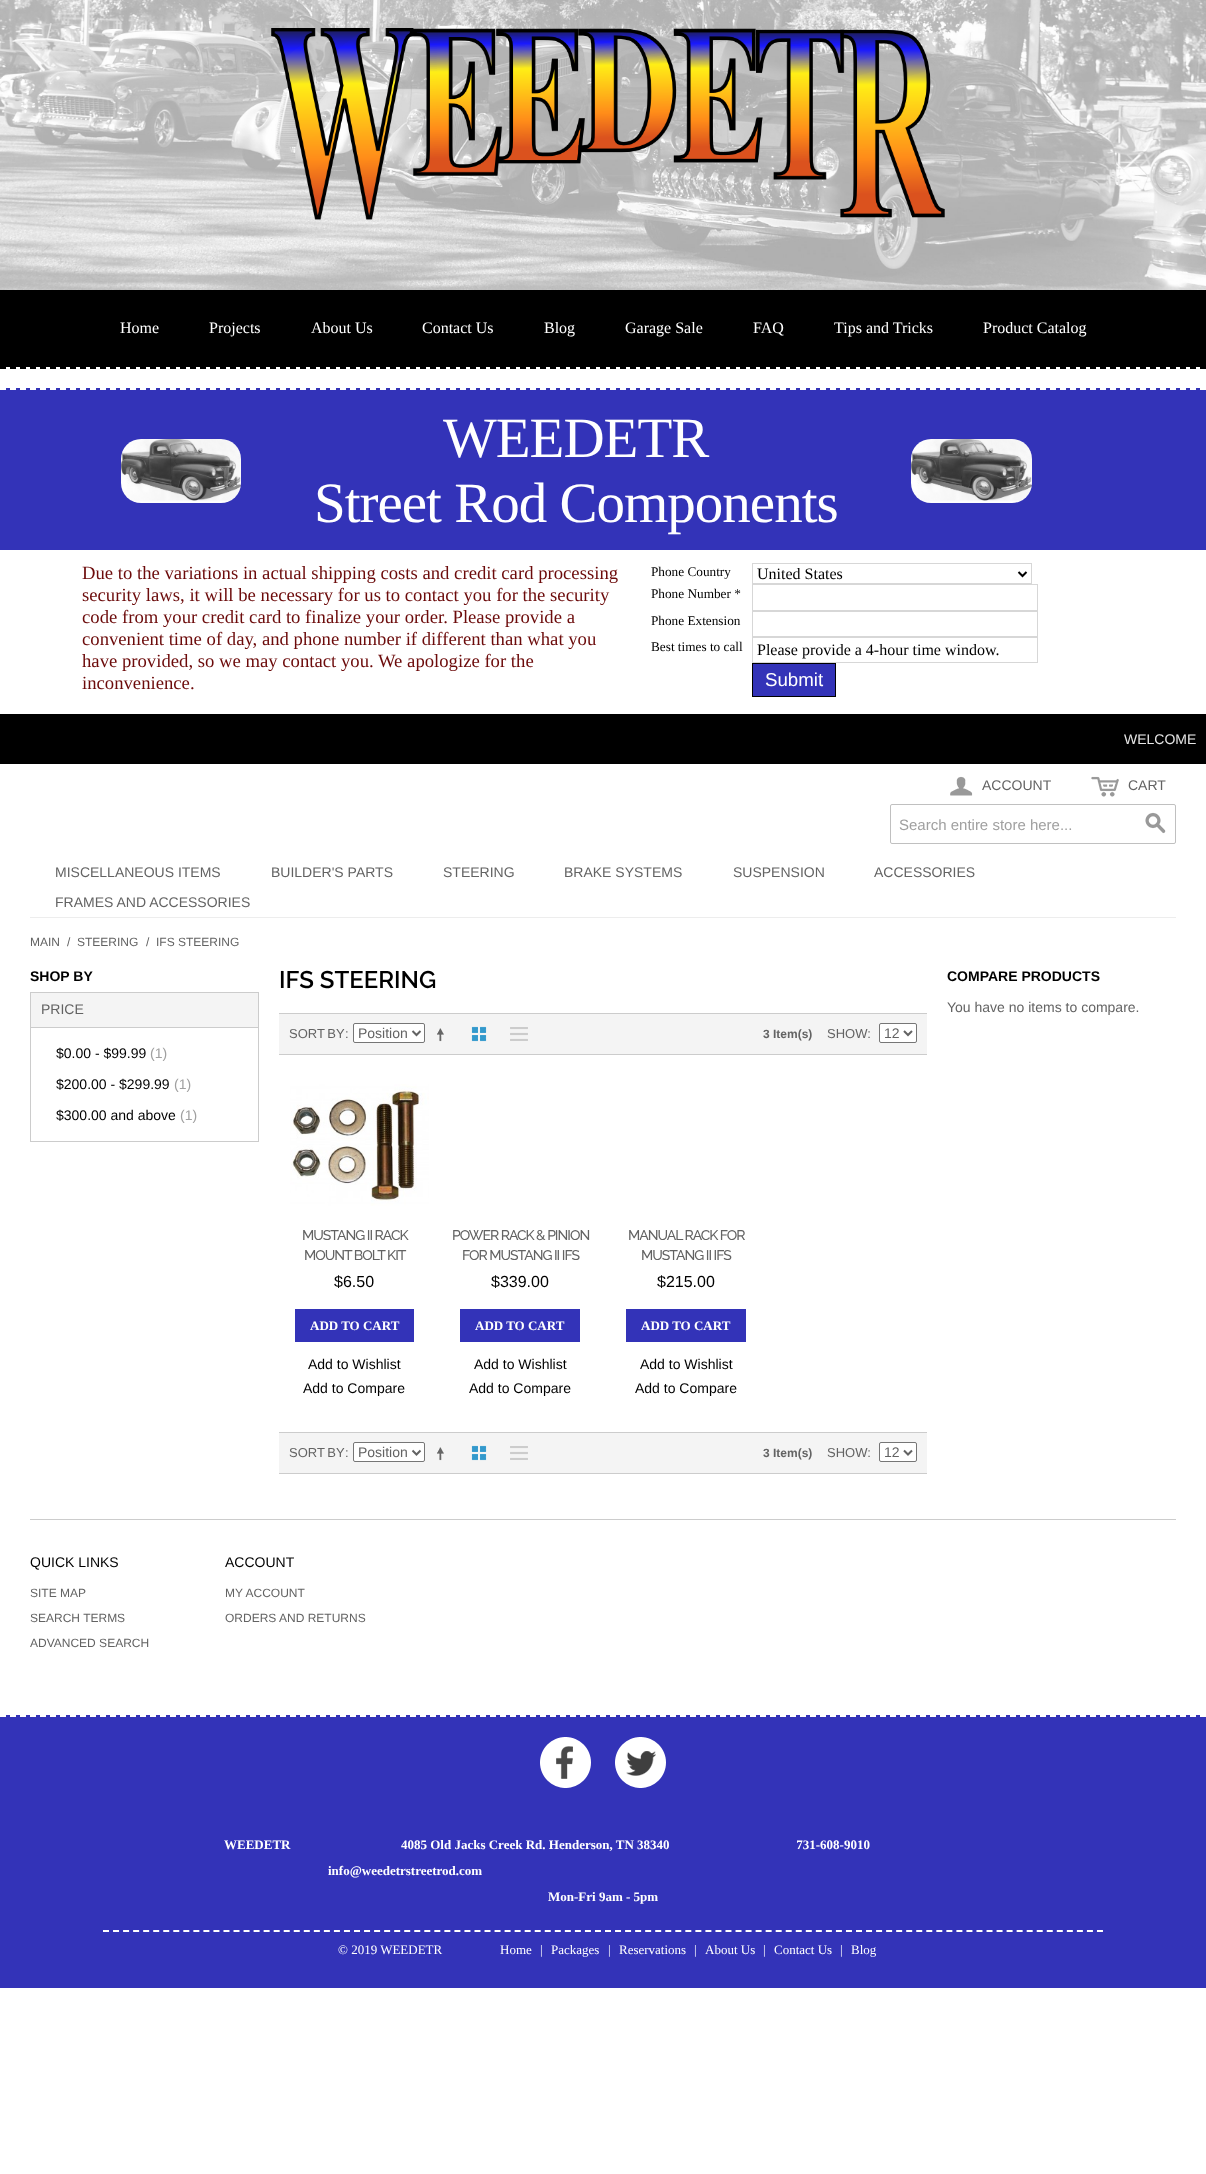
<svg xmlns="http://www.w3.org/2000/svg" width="1206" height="2174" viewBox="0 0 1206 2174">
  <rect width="100%" height="100%" fill="#ffffff"/>
  <image x="0" y="0" width="1206" height="290" href="img1.png"/>
  <image x="271" y="28" width="674" height="192" href="img2.png"/>
  <path d="M0 368H1206" fill="none" stroke="#000000" stroke-width="2" stroke-dasharray="6 4"/>
  <rect x="0" y="290" width="1206" height="77" fill="#000000"/>
  <text x="120" y="333" font-family="Liberation Serif" font-size="16" fill="#ffffff">Home</text>
  <text x="209" y="333" font-family="Liberation Serif" font-size="16" fill="#ffffff">Projects</text>
  <text x="311" y="333" font-family="Liberation Serif" font-size="16" fill="#ffffff">About Us</text>
  <text x="422" y="333" font-family="Liberation Serif" font-size="16" fill="#ffffff">Contact Us</text>
  <text x="544" y="333" font-family="Liberation Serif" font-size="16" fill="#ffffff">Blog</text>
  <text x="625" y="333" font-family="Liberation Serif" font-size="16" fill="#ffffff">Garage Sale</text>
  <text x="753" y="333" font-family="Liberation Serif" font-size="16" fill="#ffffff">FAQ</text>
  <text x="834" y="333" font-family="Liberation Serif" font-size="16" fill="#ffffff">Tips and Tricks</text>
  <text x="983" y="333" font-family="Liberation Serif" font-size="16" fill="#ffffff">Product Catalog</text>
  <rect x="0" y="388" width="1206" height="162" fill="#3333b8"/>
  <path d="M0 389H1206" fill="none" stroke="#ffffff" stroke-width="2" stroke-dasharray="6 4"/>
  <image x="121" y="439" width="120" height="64" href="img3.png"/>
  <text x="443" y="457" font-family="Liberation Serif" font-size="57" letter-spacing="-1" fill="#ffffff">WEEDETR</text>
  <text x="314" y="522" font-family="Liberation Serif" font-size="57" letter-spacing="-1" fill="#ffffff">Street Rod Components</text>
  <image x="911" y="439" width="121" height="64" href="img4.png"/>
  <text x="82" y="579" font-family="Liberation Serif" font-size="18.7" fill="#6c0b0b">Due to the variations in actual shipping costs and credit card processing</text>
  <text x="82" y="601" font-family="Liberation Serif" font-size="18.7" fill="#6c0b0b">security laws, it will be necessary for us to contact you for the security</text>
  <text x="82" y="623" font-family="Liberation Serif" font-size="18.7" fill="#6c0b0b">code from your credit card to finalize your order. Please provide a</text>
  <text x="82" y="645" font-family="Liberation Serif" font-size="18.7" fill="#6c0b0b">convenient time of day, and phone number if different than what you</text>
  <text x="82" y="667" font-family="Liberation Serif" font-size="18.7" fill="#6c0b0b">have provided, so we may contact you. We apologize for the</text>
  <text x="82" y="689" font-family="Liberation Serif" font-size="18.7" fill="#6c0b0b">inconvenience.</text>
  <text x="651" y="576" font-family="Liberation Serif" font-size="13.25" fill="#000000">Phone Country</text>
  <rect x="752.5" y="563.5" width="279" height="20" fill="none" stroke="#d7d7d7"/>
  <path d="M1018.5 572L1022.5 576L1026.5 572" fill="none" stroke="#000000" stroke-width="2"/>
  <text x="757" y="579" font-family="Liberation Serif" font-size="16" fill="#000000">United States</text>
  <text x="651" y="598" font-family="Liberation Serif" font-size="13.25" fill="#000000">Phone Number *</text>
  <rect x="752.5" y="584.5" width="285" height="26" fill="none" stroke="#d7d7d7"/>
  <text x="651" y="625" font-family="Liberation Serif" font-size="13.25" fill="#000000">Phone Extension</text>
  <rect x="752.5" y="611.5" width="285" height="25" fill="none" stroke="#d7d7d7"/>
  <text x="651" y="651" font-family="Liberation Serif" font-size="13.25" fill="#000000">Best times to call</text>
  <rect x="752.5" y="637.5" width="285" height="25" fill="none" stroke="#d7d7d7"/>
  <text x="757" y="655" font-family="Liberation Serif" font-size="16" fill="#000000">Please provide a 4-hour time window.</text>
  <rect x="752.5" y="663.5" width="83" height="33" fill="#3333b8" stroke="#000000"/>
  <text x="765" y="686" font-family="Liberation Sans" font-size="18.7" fill="#ffffff">Submit</text>
  <rect x="0" y="714" width="1206" height="50" fill="#000000"/>
  <text x="1124" y="744" font-family="Liberation Sans" font-size="14" fill="#e6e6e6">WELCOME</text>
  <image x="950" y="776" width="23" height="20" href="img5.png"/>
  <text x="982" y="790" font-family="Liberation Sans" font-size="14" fill="#636363">ACCOUNT</text>
  <image x="1091" y="776" width="28" height="21" href="img6.png"/>
  <text x="1128" y="790" font-family="Liberation Sans" font-size="14" fill="#636363">CART</text>
  <rect x="890.5" y="804.5" width="285" height="39" rx="1.5" fill="none" stroke="#c0c0c0"/>
  <text x="899" y="830" font-family="Liberation Sans" font-size="15" fill="#a0a0a0">Search entire store here...</text>
  <image x="1145" y="812" width="21" height="22" href="img7.png"/>
  <rect x="30" y="917" width="1146" height="1" fill="#ededed"/>
  <text x="55" y="877" font-family="Liberation Sans" font-size="14" fill="#636363">MISCELLANEOUS ITEMS</text>
  <text x="271" y="877" font-family="Liberation Sans" font-size="14" fill="#636363">BUILDER'S PARTS</text>
  <text x="443" y="877" font-family="Liberation Sans" font-size="14" fill="#636363">STEERING</text>
  <text x="564" y="877" font-family="Liberation Sans" font-size="14" fill="#636363">BRAKE SYSTEMS</text>
  <text x="733" y="877" font-family="Liberation Sans" font-size="14" fill="#636363">SUSPENSION</text>
  <text x="874" y="877" font-family="Liberation Sans" font-size="14" fill="#636363">ACCESSORIES</text>
  <text x="55" y="907" font-family="Liberation Sans" font-size="14" fill="#636363">FRAMES AND ACCESSORIES</text>
  <text x="30" y="946" font-family="Liberation Sans" font-size="12" fill="#636363">MAIN</text>
  <text x="67" y="946" font-family="Liberation Sans" font-size="12" fill="#636363">/</text>
  <text x="77" y="946" font-family="Liberation Sans" font-size="12" fill="#636363">STEERING</text>
  <text x="146" y="946" font-family="Liberation Sans" font-size="12" fill="#636363">/</text>
  <text x="156" y="946" font-family="Liberation Sans" font-size="12" fill="#636363">IFS STEERING</text>
  <text x="30" y="981" font-family="Liberation Sans" font-size="14" font-weight="bold" fill="#000000">SHOP BY</text>
  <rect x="30.5" y="992.5" width="228" height="35" fill="#f4f4f4" stroke="#cccccc"/>
  <text x="41" y="1014" font-family="Liberation Sans" font-size="14" fill="#636363">PRICE</text>
  <rect x="258" y="1028" width="1" height="114" fill="#cccccc"/>
  <rect x="30" y="1141" width="229" height="1" fill="#cccccc"/>
  <rect x="30" y="1028" width="1" height="114" fill="#cccccc"/>
  <text x="56" y="1058" font-family="Liberation Sans" font-size="14" fill="#000000">$0.00 - $99.99</text>
  <text x="150" y="1058" font-family="Liberation Sans" font-size="14" fill="#a0a0a0">(1)</text>
  <text x="56" y="1089" font-family="Liberation Sans" font-size="14" fill="#000000">$200.00 - $299.99</text>
  <text x="174" y="1089" font-family="Liberation Sans" font-size="14" fill="#a0a0a0">(1)</text>
  <text x="56" y="1120" font-family="Liberation Sans" font-size="14" fill="#000000">$300.00 and above</text>
  <text x="180" y="1120" font-family="Liberation Sans" font-size="14" fill="#a0a0a0">(1)</text>
  <text x="279" y="988" font-family="Raleway" font-size="24" font-weight="600" fill="#000000">IFS STEERING</text>
  <rect x="279" y="1014" width="648" height="40" fill="#f4f4f4"/>
  <rect x="279" y="1013" width="648" height="1" fill="#cccccc"/>
  <rect x="279" y="1054" width="648" height="1" fill="#cccccc"/>
  <text x="289" y="1038" word-spacing="-1" font-family="Liberation Sans" font-size="13" fill="#636363">SORT BY</text>
  <text x="345" y="1038" font-family="Liberation Sans" font-size="13" fill="#636363">:</text>
  <rect x="353.5" y="1023.5" width="71" height="19" rx="1.5" fill="#ffffff" stroke="#767676"/>
  <path d="M412.5 1031L416.5 1035L420.5 1031" fill="none" stroke="#636363" stroke-width="2"/>
  <text x="358" y="1038" font-family="Liberation Sans" font-size="14" fill="#636363">Position</text>
  <image x="437" y="1028" width="7" height="14" href="img8.png"/>
  <image x="471" y="1026" width="16" height="16" href="img9.png"/>
  <image x="510" y="1027" width="18" height="14" href="img10.png"/>
  <text x="763" y="1038" font-family="Liberation Sans" font-size="12" font-weight="bold" fill="#636363">3 Item(s)</text>
  <text x="827" y="1038" font-family="Liberation Sans" font-size="13" fill="#636363">SHOW:</text>
  <rect x="879.5" y="1023.5" width="37" height="19" rx="1.5" fill="#ffffff" stroke="#767676"/>
  <path d="M904 1031L908 1035L912 1031" fill="none" stroke="#636363" stroke-width="2"/>
  <text x="884" y="1038" font-family="Liberation Sans" font-size="14" fill="#636363">12</text>
  <image x="290" y="1084" width="139" height="122" href="img11.png"/>
  <text x="302" y="1240" font-family="Raleway" font-size="14" font-weight="500" letter-spacing="-1" fill="#636363">MUSTANG II RACK</text>
  <text x="304" y="1260" font-family="Raleway" font-size="14" font-weight="500" letter-spacing="-1" fill="#636363">MOUNT BOLT KIT</text>
  <text x="334" y="1287" font-family="Liberation Sans" font-size="16" fill="#000000">$6.50</text>
  <rect x="295" y="1309" width="119" height="33" fill="#3333b8"/>
  <text x="310" y="1330" font-family="Liberation Serif" font-size="13" font-weight="bold" fill="#ffffff">ADD TO CART</text>
  <text x="308" y="1369" font-family="Liberation Sans" font-size="14" fill="#000000">Add to Wishlist</text>
  <text x="303" y="1393" font-family="Liberation Sans" font-size="14" fill="#000000">Add to Compare</text>
  <text x="452" y="1240" font-family="Raleway" font-size="14" font-weight="500" letter-spacing="-1" fill="#636363">POWER RACK &amp; PINION</text>
  <text x="462" y="1260" font-family="Raleway" font-size="14" font-weight="500" letter-spacing="-1" fill="#636363">FOR MUSTANG II IFS</text>
  <text x="491" y="1287" font-family="Liberation Sans" font-size="16" fill="#000000">$339.00</text>
  <rect x="460" y="1309" width="120" height="33" fill="#3333b8"/>
  <text x="475" y="1330" font-family="Liberation Serif" font-size="13" font-weight="bold" fill="#ffffff">ADD TO CART</text>
  <text x="474" y="1369" font-family="Liberation Sans" font-size="14" fill="#000000">Add to Wishlist</text>
  <text x="469" y="1393" font-family="Liberation Sans" font-size="14" fill="#000000">Add to Compare</text>
  <text x="628" y="1240" font-family="Raleway" font-size="14" font-weight="500" letter-spacing="-1" fill="#636363">MANUAL RACK FOR</text>
  <text x="641" y="1260" font-family="Raleway" font-size="14" font-weight="500" letter-spacing="-1" fill="#636363">MUSTANG II IFS</text>
  <text x="657" y="1287" font-family="Liberation Sans" font-size="16" fill="#000000">$215.00</text>
  <rect x="626" y="1309" width="120" height="33" fill="#3333b8"/>
  <text x="641" y="1330" font-family="Liberation Serif" font-size="13" font-weight="bold" fill="#ffffff">ADD TO CART</text>
  <text x="640" y="1369" font-family="Liberation Sans" font-size="14" fill="#000000">Add to Wishlist</text>
  <text x="635" y="1393" font-family="Liberation Sans" font-size="14" fill="#000000">Add to Compare</text>
  <rect x="279" y="1433" width="648" height="40" fill="#f4f4f4"/>
  <rect x="279" y="1432" width="648" height="1" fill="#cccccc"/>
  <rect x="279" y="1473" width="648" height="1" fill="#cccccc"/>
  <text x="289" y="1457" word-spacing="-1" font-family="Liberation Sans" font-size="13" fill="#636363">SORT BY</text>
  <text x="345" y="1457" font-family="Liberation Sans" font-size="13" fill="#636363">:</text>
  <rect x="353.5" y="1442.5" width="71" height="19" rx="1.5" fill="#ffffff" stroke="#767676"/>
  <path d="M412.5 1450.5L416.5 1454.5L420.5 1450.5" fill="none" stroke="#636363" stroke-width="2"/>
  <text x="358" y="1457" font-family="Liberation Sans" font-size="14" fill="#636363">Position</text>
  <image x="437" y="1447" width="7" height="14" href="img8.png"/>
  <image x="471" y="1445" width="16" height="16" href="img9.png"/>
  <image x="510" y="1446" width="18" height="14" href="img10.png"/>
  <text x="763" y="1457" font-family="Liberation Sans" font-size="12" font-weight="bold" fill="#636363">3 Item(s)</text>
  <text x="827" y="1457" font-family="Liberation Sans" font-size="13" fill="#636363">SHOW:</text>
  <rect x="879.5" y="1442.5" width="37" height="19" rx="1.5" fill="#ffffff" stroke="#767676"/>
  <path d="M904 1450.5L908 1454.5L912 1450.5" fill="none" stroke="#636363" stroke-width="2"/>
  <text x="884" y="1457" font-family="Liberation Sans" font-size="14" fill="#636363">12</text>
  <text x="947" y="981" font-family="Liberation Sans" font-size="14" font-weight="bold" fill="#000000">COMPARE PRODUCTS</text>
  <text x="947" y="1012" font-family="Liberation Sans" font-size="14" fill="#636363">You have no items to compare.</text>
  <rect x="30" y="1519" width="1146" height="1" fill="#cccccc"/>
  <text x="30" y="1567" font-family="Liberation Sans" font-size="14" fill="#000000">QUICK LINKS</text>
  <text x="30" y="1597" font-family="Liberation Sans" font-size="12" fill="#636363">SITE MAP</text>
  <text x="30" y="1622" font-family="Liberation Sans" font-size="12" fill="#636363">SEARCH TERMS</text>
  <text x="30" y="1647" font-family="Liberation Sans" font-size="12" fill="#636363">ADVANCED SEARCH</text>
  <text x="225" y="1567" font-family="Liberation Sans" font-size="14" fill="#000000">ACCOUNT</text>
  <text x="225" y="1597" font-family="Liberation Sans" font-size="12" fill="#636363">MY ACCOUNT</text>
  <text x="225" y="1622" font-family="Liberation Sans" font-size="12" fill="#636363">ORDERS AND RETURNS</text>
  <rect x="0" y="1715" width="1206" height="273" fill="#3333b8"/>
  <path d="M0 1716H1206" fill="none" stroke="#ffffff" stroke-width="2" stroke-dasharray="6 4"/>
  <image x="540" y="1737" width="51" height="51" href="img12.png"/>
  <image x="615" y="1737" width="51" height="51" href="img13.png"/>
  <path d="M103 1931H1103" fill="none" stroke="#ffffff" stroke-width="2" stroke-dasharray="6 4.04"/>
  <text x="224" y="1849" font-family="Liberation Serif" font-size="13" font-weight="bold" fill="#ffffff" xml:space="preserve">WEEDETR                                  4085 Old Jacks Creek Rd. Henderson, TN 38340                                       731-608-9010</text>
  <text x="328" y="1875" font-family="Liberation Serif" font-size="13" font-weight="bold" fill="#ffffff">info@weedetrstreetrod.com</text>
  <text x="548" y="1901" font-family="Liberation Serif" font-size="13" font-weight="bold" fill="#ffffff">Mon-Fri 9am - 5pm</text>
  <text x="338" y="1954" font-family="Liberation Serif" font-size="13" fill="#ffffff">© 2019 WEEDETR</text>
  <text x="500" y="1954" font-family="Liberation Serif" font-size="13" fill="#ffffff">Home</text>
  <text x="540" y="1954" font-family="Liberation Serif" font-size="13" fill="#ffffff">|</text>
  <text x="551" y="1954" font-family="Liberation Serif" font-size="13" fill="#ffffff">Packages</text>
  <text x="608" y="1954" font-family="Liberation Serif" font-size="13" fill="#ffffff">|</text>
  <text x="619" y="1954" font-family="Liberation Serif" font-size="13" fill="#ffffff">Reservations</text>
  <text x="694" y="1954" font-family="Liberation Serif" font-size="13" fill="#ffffff">|</text>
  <text x="705" y="1954" font-family="Liberation Serif" font-size="13" fill="#ffffff">About Us</text>
  <text x="763" y="1954" font-family="Liberation Serif" font-size="13" fill="#ffffff">|</text>
  <text x="774" y="1954" font-family="Liberation Serif" font-size="13" fill="#ffffff">Contact Us</text>
  <text x="840" y="1954" font-family="Liberation Serif" font-size="13" fill="#ffffff">|</text>
  <text x="851" y="1954" font-family="Liberation Serif" font-size="13" fill="#ffffff">Blog</text>
</svg>
